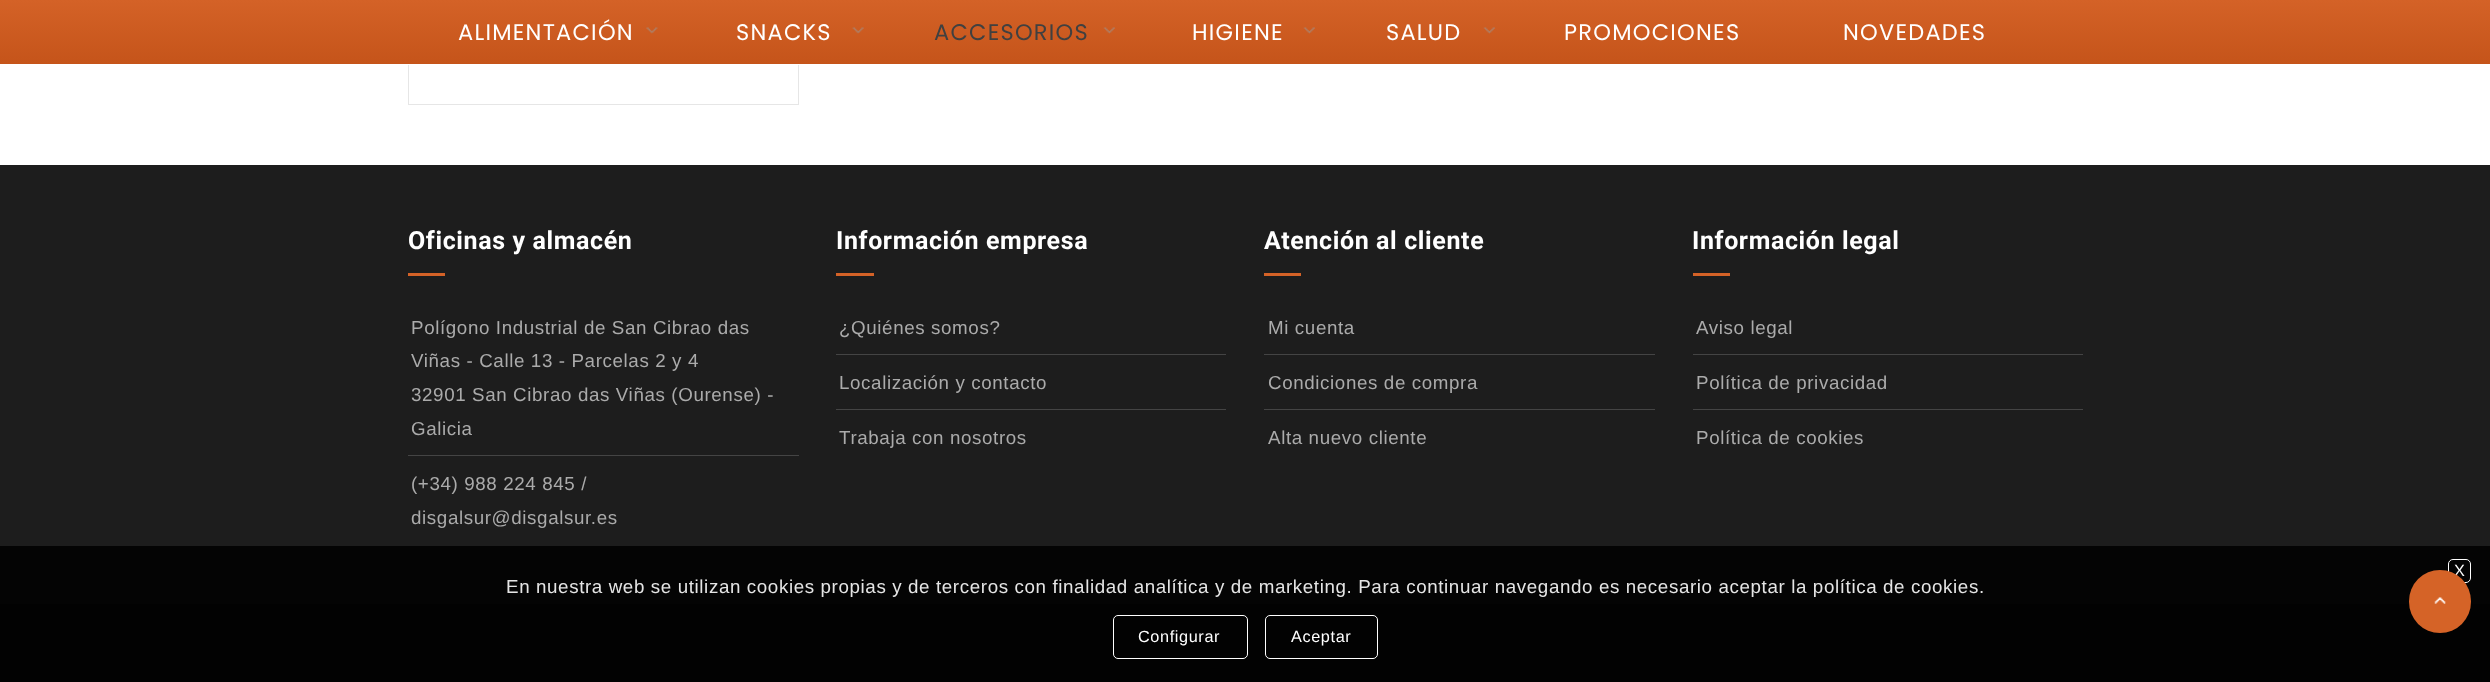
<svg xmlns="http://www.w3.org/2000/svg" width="2490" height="682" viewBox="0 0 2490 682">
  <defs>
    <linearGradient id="g1" gradientUnits="userSpaceOnUse" x1="1245" y1="0" x2="1245" y2="64"><stop offset="0" stop-color="#d46227"/><stop offset="1" stop-color="#c5541a"/></linearGradient>
  </defs>
  <rect width="100%" height="100%" fill="#ffffff"/>
  <rect x="408.5" y="-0.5" width="390" height="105" fill="none" stroke="#e6e6e6"/>
  <rect x="0" y="0" width="2490" height="64" fill="url(#g1)"/>
  <rect x="408" y="64" width="391" height="1" fill="#ffffff"/>
  <image x="646" y="27" width="12" height="7" href="img1.png"/>
  <text x="458" y="40" font-family="Poppins" font-size="22.5" letter-spacing="1.25" fill="#ffffff">ALIMENTACIÓN</text>
  <image x="852" y="27" width="12" height="7" href="img2.png"/>
  <text x="736" y="40" font-family="Poppins" font-size="22.5" letter-spacing="1.25" fill="#ffffff">SNACKS</text>
  <image x="1103" y="27" width="12" height="7" href="img3.png"/>
  <text x="934" y="40" font-family="Poppins" font-size="22.5" letter-spacing="1.25" fill="#404040">ACCESORIOS</text>
  <image x="1303" y="27" width="12" height="7" href="img4.png"/>
  <text x="1192" y="40" font-family="Poppins" font-size="22.5" letter-spacing="1.25" fill="#ffffff">HIGIENE</text>
  <image x="1483" y="27" width="12" height="7" href="img3.png"/>
  <text x="1386" y="40" font-family="Poppins" font-size="22.5" letter-spacing="1.25" fill="#ffffff">SALUD</text>
  <text x="1564" y="40" font-family="Poppins" font-size="22.5" letter-spacing="1.25" fill="#ffffff">PROMOCIONES</text>
  <text x="1843" y="40" font-family="Poppins" font-size="22.5" letter-spacing="1.25" fill="#ffffff">NOVEDADES</text>
  <rect x="0" y="165" width="2490" height="439" fill="#1d1d1d"/>
  <text x="408" y="249" font-family="Roboto" font-size="25" font-weight="bold" letter-spacing="0.62" fill="#ffffff">Oficinas y almacén</text>
  <rect x="408" y="273" width="37" height="3" fill="#d46227"/>
  <rect x="408" y="455" width="391" height="1" fill="#444444"/>
  <text x="411" y="334" font-family="Liberation Sans" font-size="18.75" letter-spacing="0.62" fill="#ababab">Polígono Industrial de San Cibrao das</text>
  <text x="411" y="367" font-family="Liberation Sans" font-size="18.75" letter-spacing="0.62" fill="#ababab">Viñas - Calle 13 - Parcelas 2 y 4</text>
  <text x="411" y="401" font-family="Liberation Sans" font-size="18.75" letter-spacing="0.62" fill="#ababab">32901 San Cibrao das Viñas (Ourense) -</text>
  <text x="411" y="435" font-family="Liberation Sans" font-size="18.75" letter-spacing="0.62" fill="#ababab">Galicia</text>
  <text x="411" y="490" font-family="Liberation Sans" font-size="18.75" letter-spacing="0.62" fill="#ababab">(+34) 988 224 845 /</text>
  <text x="411" y="524" font-family="Liberation Sans" font-size="18.75" letter-spacing="0.62" fill="#ababab">disgalsur@disgalsur.es</text>
  <text x="836" y="249" font-family="Roboto" font-size="25" font-weight="bold" letter-spacing="0.62" fill="#ffffff">Información empresa</text>
  <rect x="836" y="273" width="38" height="3" fill="#d46227"/>
  <rect x="836" y="354" width="390" height="1" fill="#444444"/>
  <text x="839" y="334" font-family="Liberation Sans" font-size="18.75" letter-spacing="0.62" fill="#ababab">¿Quiénes somos?</text>
  <rect x="836" y="409" width="390" height="1" fill="#444444"/>
  <text x="839" y="389" font-family="Liberation Sans" font-size="18.75" letter-spacing="0.62" fill="#ababab">Localización y contacto</text>
  <text x="839" y="444" font-family="Liberation Sans" font-size="18.75" letter-spacing="0.62" fill="#ababab">Trabaja con nosotros</text>
  <text x="1264" y="249" font-family="Roboto" font-size="25" font-weight="bold" letter-spacing="0.62" fill="#ffffff">Atención al cliente</text>
  <rect x="1264" y="273" width="37" height="3" fill="#d46227"/>
  <rect x="1264" y="354" width="391" height="1" fill="#444444"/>
  <text x="1268" y="334" font-family="Liberation Sans" font-size="18.75" letter-spacing="0.62" fill="#ababab">Mi cuenta</text>
  <rect x="1264" y="409" width="391" height="1" fill="#444444"/>
  <text x="1268" y="389" font-family="Liberation Sans" font-size="18.75" letter-spacing="0.62" fill="#ababab">Condiciones de compra</text>
  <text x="1268" y="444" font-family="Liberation Sans" font-size="18.75" letter-spacing="0.62" fill="#ababab">Alta nuevo cliente</text>
  <text x="1692" y="249" font-family="Roboto" font-size="25" font-weight="bold" letter-spacing="0.62" fill="#ffffff">Información legal</text>
  <rect x="1693" y="273" width="37" height="3" fill="#d46227"/>
  <rect x="1693" y="354" width="390" height="1" fill="#444444"/>
  <text x="1696" y="334" font-family="Liberation Sans" font-size="18.75" letter-spacing="0.62" fill="#ababab">Aviso legal</text>
  <rect x="1693" y="409" width="390" height="1" fill="#444444"/>
  <text x="1696" y="389" font-family="Liberation Sans" font-size="18.75" letter-spacing="0.62" fill="#ababab">Política de privacidad</text>
  <text x="1696" y="444" font-family="Liberation Sans" font-size="18.75" letter-spacing="0.62" fill="#ababab">Política de cookies</text>
  <rect x="0" y="604" width="2490" height="78" fill="#111111"/>
  <rect x="0" y="546" width="2490" height="136" fill="#000000" fill-opacity="0.85"/>
  <rect x="2448.5" y="559.5" width="22" height="23" rx="4.5" fill="none" stroke="#ffffff"/>
  <text x="2454" y="576" font-family="Liberation Sans" font-size="16.25" letter-spacing="0.62" fill="#ffffff">X</text>
  <text x="506" y="593" font-family="Liberation Sans" font-size="18.75" letter-spacing="0.62" fill="#e5e5e5">En nuestra web se utilizan cookies propias y de terceros con finalidad analítica y de marketing. Para continuar navegando es necesario aceptar la política de cookies.</text>
  <rect x="1113.5" y="615.5" width="134" height="43" rx="4.5" fill="none" stroke="#ffffff"/>
  <text x="1138" y="642" font-family="Liberation Sans" font-size="16.25" letter-spacing="0.62" fill="#ffffff">Configurar</text>
  <rect x="1265.5" y="615.5" width="112" height="43" rx="4.5" fill="none" stroke="#ffffff"/>
  <text x="1291" y="642" font-family="Liberation Sans" font-size="16.25" letter-spacing="0.62" fill="#ffffff">Aceptar</text>
  <rect x="2409" y="570" width="62" height="63" rx="31" fill="#d56327"/>
  <image x="2434" y="597" width="12" height="7" href="img5.png"/>
</svg>
